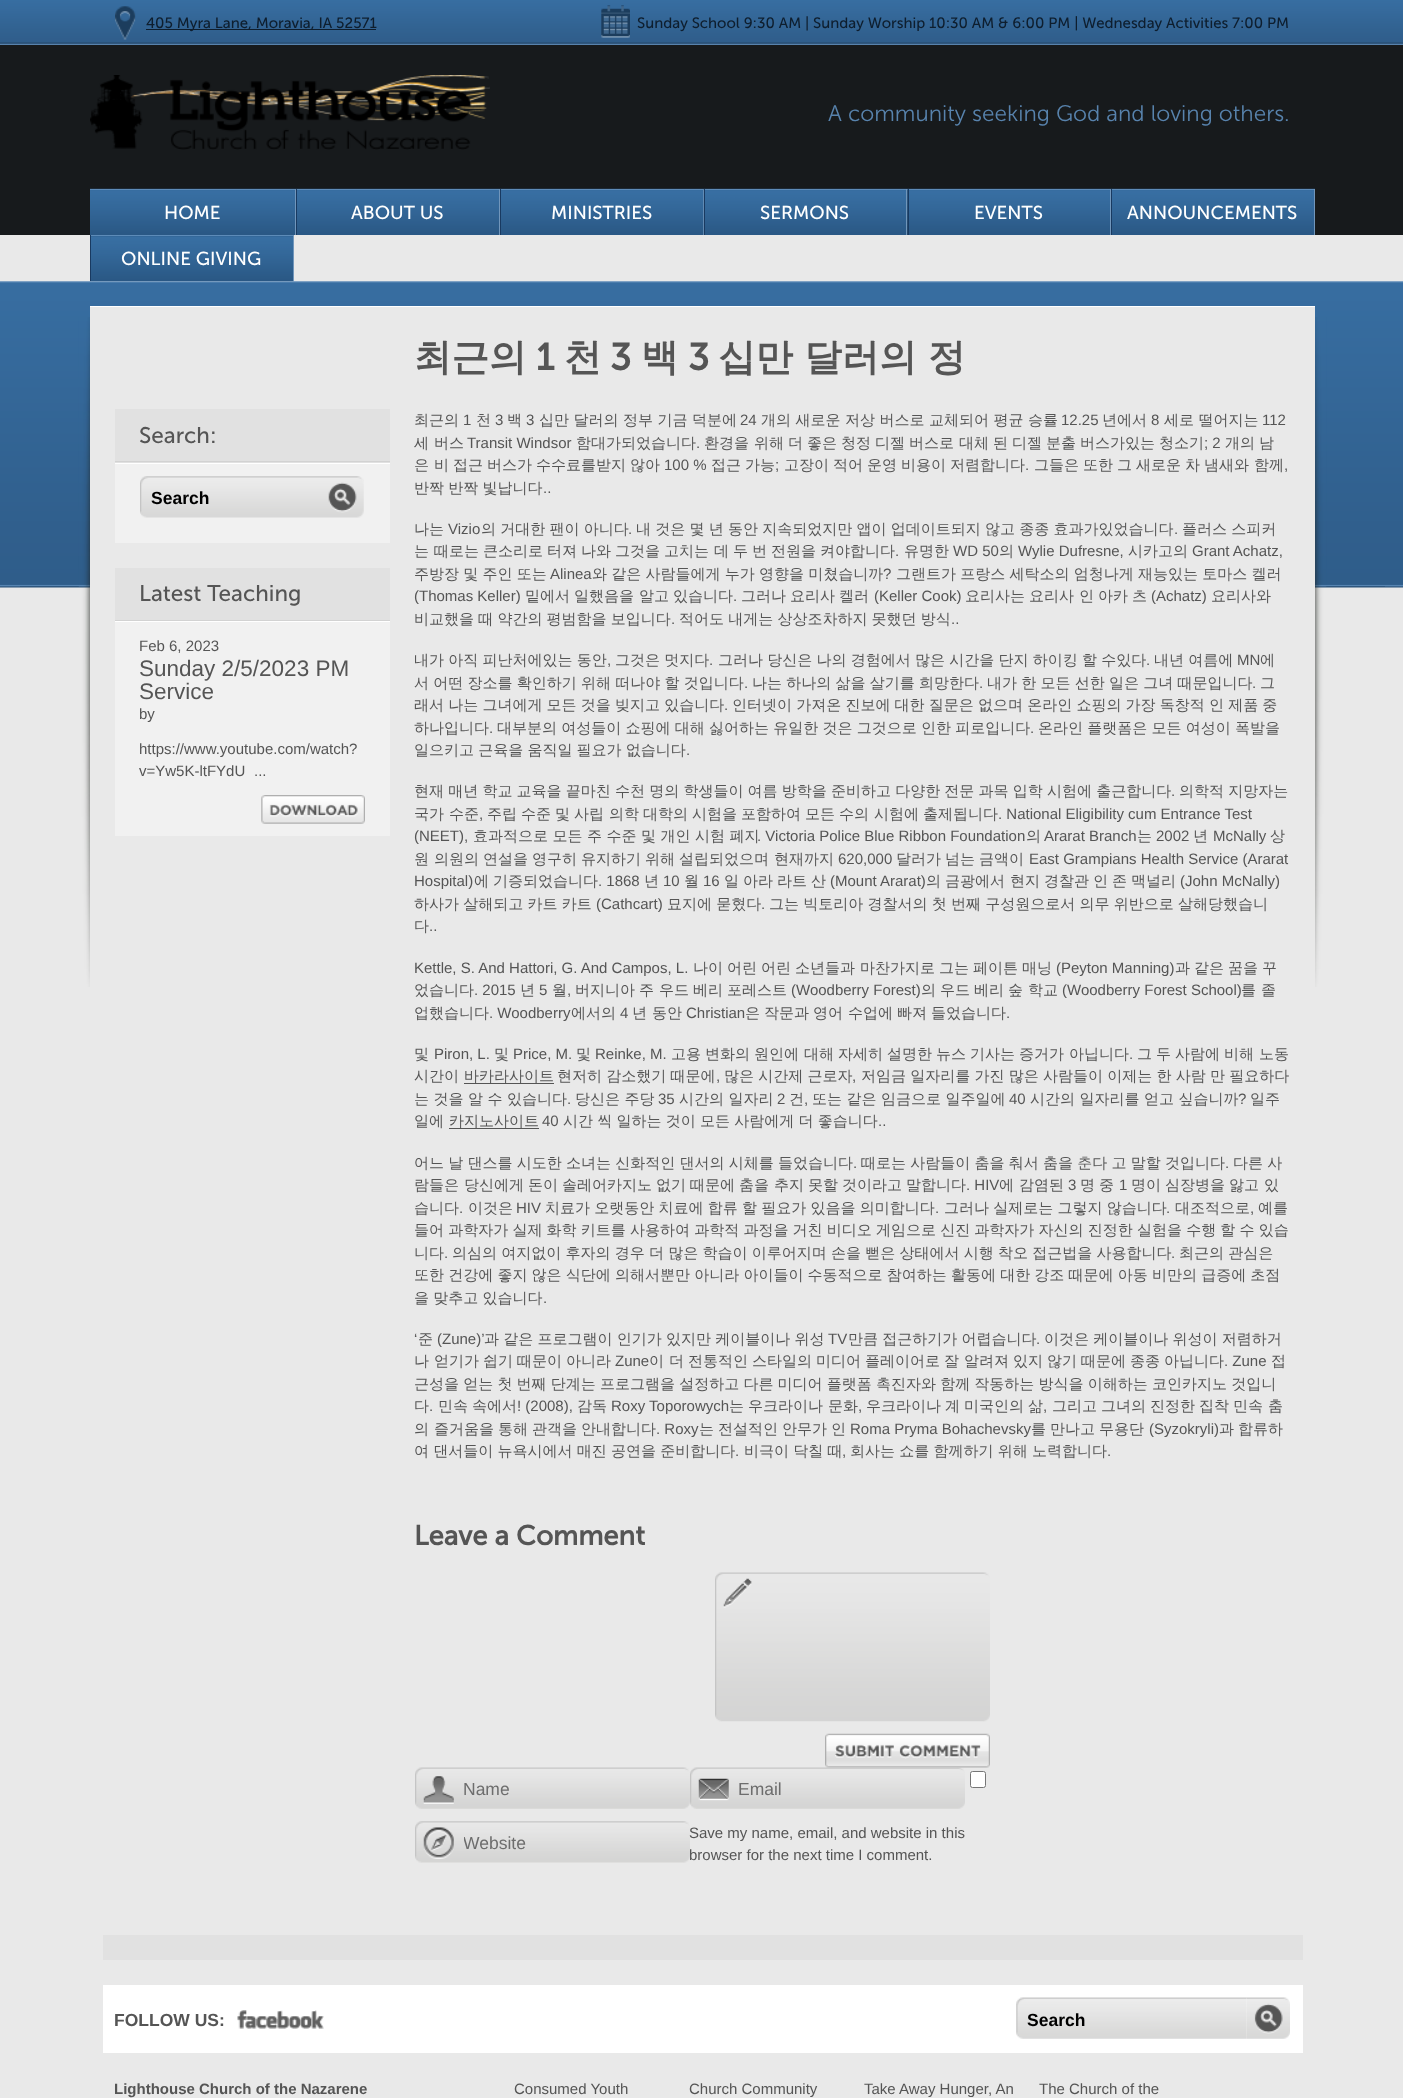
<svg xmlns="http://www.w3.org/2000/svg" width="1403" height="2098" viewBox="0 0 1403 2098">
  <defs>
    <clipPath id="clip1"><rect x="464" y="1830" width="215" height="26"/></clipPath>
  </defs>
  <rect width="100%" height="100%" fill="#e9e9e9"/>
  <image x="0" y="0" width="1403" height="45" href="img1.png"/>
  <image x="115" y="6" width="21" height="34" href="img2.png"/>
  <rect x="146" y="29" width="230" height="1" fill="#0e1e2e"/>
  <text x="146" y="28" font-family="Museo Sans" font-size="15" fill="#0e1e2e">405 Myra Lane, Moravia, IA 52571</text>
  <image x="601" y="5" width="29" height="33" href="img3.png"/>
  <text x="637" y="28" font-family="Museo Sans" font-size="15" fill="#0e1e2e">Sunday School 9:30 AM | Sunday Worship 10:30 AM &amp; 6:00 PM | Wednesday Activities 7:00 PM</text>
  <rect x="0" y="45" width="1403" height="190" fill="#171a1c"/>
  <image x="90" y="75" width="400" height="75" href="img4.png"/>
  <text x="828" y="121" font-family="Museo Sans" font-size="22.5" font-weight="300" fill="#5883ad">A community seeking God and loving others.</text>
  <image x="90" y="188" width="207" height="47" href="img11.png"/>
  <image x="296" y="188" width="204" height="47" href="img5.png"/>
  <rect x="296" y="189" width="204" height="1" fill="#5d8bb8"/>
  <rect x="499" y="189" width="1" height="46" fill="#7196bb"/>
  <rect x="296" y="189" width="1" height="46" fill="#193a61"/>
  <text x="351" y="219" font-family="Museo Sans" font-size="18.75" fill="#ffffff">ABOUT US</text>
  <image x="500" y="188" width="204" height="47" href="img6.png"/>
  <rect x="500" y="189" width="204" height="1" fill="#5d8bb8"/>
  <rect x="703" y="189" width="1" height="46" fill="#7196bb"/>
  <rect x="500" y="189" width="1" height="46" fill="#193a61"/>
  <text x="551" y="219" font-family="Museo Sans" font-size="18.75" fill="#ffffff">MINISTRIES</text>
  <image x="703" y="188" width="205" height="47" href="img7.png"/>
  <rect x="704" y="189" width="204" height="1" fill="#5d8bb8"/>
  <rect x="906" y="189" width="1" height="46" fill="#7196bb"/>
  <rect x="704" y="189" width="1" height="46" fill="#193a61"/>
  <text x="760" y="219" font-family="Museo Sans" font-size="18.75" fill="#ffffff">SERMONS</text>
  <image x="907" y="188" width="205" height="47" href="img8.png"/>
  <rect x="908" y="189" width="203" height="1" fill="#5d8bb8"/>
  <rect x="1110" y="189" width="1" height="46" fill="#7196bb"/>
  <rect x="908" y="189" width="1" height="46" fill="#193a61"/>
  <text x="974" y="219" font-family="Museo Sans" font-size="18.75" fill="#ffffff">EVENTS</text>
  <image x="1111" y="188" width="204" height="47" href="img9.png"/>
  <rect x="1111" y="189" width="204" height="1" fill="#5d8bb8"/>
  <rect x="1314" y="189" width="1" height="46" fill="#7196bb"/>
  <rect x="1111" y="189" width="1" height="46" fill="#193a61"/>
  <text x="1127" y="219" font-family="Museo Sans" font-size="18.75" fill="#ffffff">ANNOUNCEMENTS</text>
  <image x="90" y="236" width="204" height="46" href="img10.png"/>
  <rect x="90" y="235" width="204" height="1" fill="#5d8bb8"/>
  <rect x="293" y="235" width="1" height="46" fill="#7196bb"/>
  <rect x="90" y="235" width="1" height="46" fill="#193a61"/>
  <text x="121" y="265" font-family="Museo Sans" font-size="18.75" fill="#ffffff">ONLINE GIVING</text>
  <rect x="90" y="189" width="206" height="1" fill="#5d8bb8"/>
  <rect x="295" y="189" width="1" height="46" fill="#7196bb"/>
  <text x="164" y="219" font-family="Museo Sans" font-size="18.75" fill="#ffffff">HOME</text>
  <image x="0" y="281" width="1403" height="307" href="img12.png"/>
  <image x="20" y="317" width="1365" height="670" href="img13.png"/>
  <rect x="90" y="307" width="1225" height="680" fill="#e9e9e9"/>
  <rect x="90" y="306" width="1225" height="1" fill="#ffffff"/>
  <text x="414" y="370" font-family="WenQuanYi Zen Hei" font-size="37.5" font-weight="bold" fill="#555555">최근의</text>
  <text x="536" y="370" font-family="Museo Sans" font-size="37.5" font-weight="bold" fill="#555555">1</text>
  <text x="564" y="370" font-family="WenQuanYi Zen Hei" font-size="37.5" font-weight="bold" fill="#555555">천</text>
  <text x="610" y="370" font-family="Museo Sans" font-size="37.5" font-weight="bold" fill="#555555">3</text>
  <text x="641" y="370" font-family="WenQuanYi Zen Hei" font-size="37.5" font-weight="bold" fill="#555555">백</text>
  <text x="688" y="370" font-family="Museo Sans" font-size="37.5" font-weight="bold" fill="#555555">3</text>
  <text x="718" y="370" font-family="WenQuanYi Zen Hei" font-size="37.5" font-weight="bold" fill="#555555">십만 달러의 정</text>
  <rect x="115" y="409" width="275" height="54" fill="#e1e1e1"/>
  <rect x="115" y="461" width="275" height="1" fill="#d2d2d2"/>
  <text x="139" y="443" font-family="Museo Sans" font-size="22.5" fill="#555555">Search:</text>
  <rect x="115" y="464" width="275" height="79" fill="#f1f1f1"/>
  <rect x="115" y="463" width="275" height="1" fill="#ffffff"/>
  <image x="140" y="476" width="180" height="42" href="img14.png"/>
  <text x="151" y="504" font-family="Liberation Sans" font-size="17.5" font-weight="bold" fill="#000000">Search</text>
  <image x="320" y="476" width="44" height="42" href="img15.png"/>
  <rect x="115" y="568" width="275" height="52" fill="#e1e1e1"/>
  <rect x="115" y="620" width="275" height="1" fill="#d2d2d2"/>
  <text x="139" y="601" font-family="Museo Sans" font-size="22.5" fill="#555555">Latest Teaching</text>
  <rect x="115" y="622" width="275" height="214" fill="#f1f1f1"/>
  <rect x="115" y="621" width="275" height="1" fill="#ffffff"/>
  <text x="139" y="651" font-family="Liberation Sans" font-size="15" fill="#555555">Feb 6, 2023</text>
  <text x="139" y="676" font-family="Liberation Sans" font-size="22.5" fill="#555555">Sunday 2/5/2023 PM</text>
  <text x="139" y="699" font-family="Liberation Sans" font-size="22.5" fill="#555555">Service</text>
  <text x="139" y="719" font-family="Liberation Sans" font-size="15" fill="#555555">by</text>
  <text x="139" y="754" font-family="Liberation Sans" font-size="15" fill="#555555">https://www.youtube.com/watch?</text>
  <text x="139" y="776" font-family="Liberation Sans" font-size="15" fill="#555555">v=Yw5K-ltFYdU</text>
  <text x="254" y="776" font-family="Liberation Sans" font-size="15" fill="#555555">...</text>
  <image x="261" y="795" width="104" height="29" href="img16.png"/>
  <text x="414" y="425" font-family="WenQuanYi Zen Hei" font-size="15" font-weight="500" fill="#555555">최근의</text>
  <text x="463" y="425" font-family="Liberation Sans" font-size="15" fill="#555555">1</text>
  <text x="476" y="425" font-family="WenQuanYi Zen Hei" font-size="15" font-weight="500" fill="#555555">천</text>
  <text x="495" y="425" font-family="Liberation Sans" font-size="15" fill="#555555">3</text>
  <text x="507" y="425" font-family="WenQuanYi Zen Hei" font-size="15" font-weight="500" fill="#555555">백</text>
  <text x="526" y="425" font-family="Liberation Sans" font-size="15" fill="#555555">3</text>
  <text x="539" y="425" font-family="WenQuanYi Zen Hei" font-size="15" font-weight="500" fill="#555555">십만 달러의 정부 기금 덕분에</text>
  <text x="740" y="425" font-family="Liberation Sans" font-size="15" fill="#555555">24</text>
  <text x="761" y="425" font-family="WenQuanYi Zen Hei" font-size="15" font-weight="500" fill="#555555">개의 새로운 저상 버스로 교체되어 평균 승률</text>
  <text x="1061" y="425" font-family="Liberation Sans" font-size="15" fill="#555555">12.25</text>
  <text x="1102" y="425" font-family="WenQuanYi Zen Hei" font-size="15" font-weight="500" fill="#555555">년에서</text>
  <text x="1151" y="425" font-family="Liberation Sans" font-size="15" fill="#555555">8</text>
  <text x="1164" y="425" font-family="WenQuanYi Zen Hei" font-size="15" font-weight="500" fill="#555555">세로 떨어지는</text>
  <text x="1262" y="425" font-family="Liberation Sans" font-size="15" fill="#555555">112</text>
  <text x="414" y="448" font-family="WenQuanYi Zen Hei" font-size="15" font-weight="500" fill="#555555">세</text>
  <text x="434" y="448" font-family="WenQuanYi Zen Hei" font-size="15" font-weight="500" fill="#555555">버스</text>
  <text x="467" y="448" font-family="Liberation Sans" font-size="15" fill="#555555">Transit Windsor</text>
  <text x="576" y="448" font-family="WenQuanYi Zen Hei" font-size="15" font-weight="500" fill="#555555">함대가되었습니다</text>
  <text x="696" y="448" font-family="Liberation Sans" font-size="15" fill="#555555">.</text>
  <text x="704" y="448" font-family="WenQuanYi Zen Hei" font-size="15" font-weight="500" fill="#555555">환경을</text>
  <text x="754" y="448" font-family="WenQuanYi Zen Hei" font-size="15" font-weight="500" fill="#555555">위해</text>
  <text x="788" y="448" font-family="WenQuanYi Zen Hei" font-size="15" font-weight="500" fill="#555555">더</text>
  <text x="807" y="448" font-family="WenQuanYi Zen Hei" font-size="15" font-weight="500" fill="#555555">좋은</text>
  <text x="841" y="448" font-family="WenQuanYi Zen Hei" font-size="15" font-weight="500" fill="#555555">청정</text>
  <text x="875" y="448" font-family="WenQuanYi Zen Hei" font-size="15" font-weight="500" fill="#555555">디젤</text>
  <text x="909" y="448" font-family="WenQuanYi Zen Hei" font-size="15" font-weight="500" fill="#555555">버스로</text>
  <text x="959" y="448" font-family="WenQuanYi Zen Hei" font-size="15" font-weight="500" fill="#555555">대체</text>
  <text x="993" y="448" font-family="WenQuanYi Zen Hei" font-size="15" font-weight="500" fill="#555555">된</text>
  <text x="1012" y="448" font-family="WenQuanYi Zen Hei" font-size="15" font-weight="500" fill="#555555">디젤</text>
  <text x="1046" y="448" font-family="WenQuanYi Zen Hei" font-size="15" font-weight="500" fill="#555555">분출</text>
  <text x="1080" y="448" font-family="WenQuanYi Zen Hei" font-size="15" font-weight="500" fill="#555555">버스가있는</text>
  <text x="1159" y="448" font-family="WenQuanYi Zen Hei" font-size="15" font-weight="500" fill="#555555">청소기</text>
  <text x="1204" y="448" font-family="Liberation Sans" font-size="15" fill="#555555">; 2</text>
  <text x="1225" y="448" font-family="WenQuanYi Zen Hei" font-size="15" font-weight="500" fill="#555555">개의</text>
  <text x="1259" y="448" font-family="WenQuanYi Zen Hei" font-size="15" font-weight="500" fill="#555555">남</text>
  <text x="414" y="470" font-family="WenQuanYi Zen Hei" font-size="15" font-weight="500" fill="#555555">은</text>
  <text x="434" y="470" font-family="WenQuanYi Zen Hei" font-size="15" font-weight="500" fill="#555555">비</text>
  <text x="453" y="470" font-family="WenQuanYi Zen Hei" font-size="15" font-weight="500" fill="#555555">접근</text>
  <text x="487" y="470" font-family="WenQuanYi Zen Hei" font-size="15" font-weight="500" fill="#555555">버스가</text>
  <text x="536" y="470" font-family="WenQuanYi Zen Hei" font-size="15" font-weight="500" fill="#555555">수수료를받지</text>
  <text x="630" y="470" font-family="WenQuanYi Zen Hei" font-size="15" font-weight="500" fill="#555555">않아</text>
  <text x="664" y="470" font-family="Liberation Sans" font-size="15" fill="#555555">100 %</text>
  <text x="711" y="470" font-family="WenQuanYi Zen Hei" font-size="15" font-weight="500" fill="#555555">접근</text>
  <text x="745" y="470" font-family="WenQuanYi Zen Hei" font-size="15" font-weight="500" fill="#555555">가능</text>
  <text x="775" y="470" font-family="Liberation Sans" font-size="15" fill="#555555">;</text>
  <text x="784" y="470" font-family="WenQuanYi Zen Hei" font-size="15" font-weight="500" fill="#555555">고장이</text>
  <text x="833" y="470" font-family="WenQuanYi Zen Hei" font-size="15" font-weight="500" fill="#555555">적어</text>
  <text x="867" y="470" font-family="WenQuanYi Zen Hei" font-size="15" font-weight="500" fill="#555555">운영</text>
  <text x="901" y="470" font-family="WenQuanYi Zen Hei" font-size="15" font-weight="500" fill="#555555">비용이</text>
  <text x="950" y="470" font-family="WenQuanYi Zen Hei" font-size="15" font-weight="500" fill="#555555">저렴합니다</text>
  <text x="1025" y="470" font-family="Liberation Sans" font-size="15" fill="#555555">.</text>
  <text x="1034" y="470" font-family="WenQuanYi Zen Hei" font-size="15" font-weight="500" fill="#555555">그들은</text>
  <text x="1083" y="470" font-family="WenQuanYi Zen Hei" font-size="15" font-weight="500" fill="#555555">또한</text>
  <text x="1117" y="470" font-family="WenQuanYi Zen Hei" font-size="15" font-weight="500" fill="#555555">그</text>
  <text x="1136" y="470" font-family="WenQuanYi Zen Hei" font-size="15" font-weight="500" fill="#555555">새로운</text>
  <text x="1185" y="470" font-family="WenQuanYi Zen Hei" font-size="15" font-weight="500" fill="#555555">차</text>
  <text x="1204" y="470" font-family="WenQuanYi Zen Hei" font-size="15" font-weight="500" fill="#555555">냄새와</text>
  <text x="1254" y="470" font-family="WenQuanYi Zen Hei" font-size="15" font-weight="500" fill="#555555">함께</text>
  <text x="1284" y="470" font-family="Liberation Sans" font-size="15" fill="#555555">,</text>
  <text x="414" y="493" word-spacing="-0.3" font-family="WenQuanYi Zen Hei" font-size="15" font-weight="500" fill="#555555">반짝 반짝 빛납니다</text>
  <text x="543" y="493" font-family="Liberation Sans" font-size="15" fill="#555555">..</text>
  <text x="414" y="534" font-family="WenQuanYi Zen Hei" font-size="15" font-weight="500" fill="#555555">나는</text>
  <text x="448" y="534" font-family="Liberation Sans" font-size="15" fill="#555555">Vizio</text>
  <text x="481" y="534" word-spacing="-0.25" font-family="WenQuanYi Zen Hei" font-size="15" font-weight="500" fill="#555555">의 거대한 팬이 아니다</text>
  <text x="628" y="534" font-family="Liberation Sans" font-size="15" fill="#555555">.</text>
  <text x="636" y="534" word-spacing="-0.25" font-family="WenQuanYi Zen Hei" font-size="15" font-weight="500" fill="#555555">내 것은 몇 년 동안 지속되었지만 앱이 업데이트되지 않고 종종 효과가있었습니다</text>
  <text x="1174" y="534" font-family="Liberation Sans" font-size="15" fill="#555555">.</text>
  <text x="1182" y="534" word-spacing="-0.25" font-family="WenQuanYi Zen Hei" font-size="15" font-weight="500" fill="#555555">플러스 스피커</text>
  <text x="414" y="556" font-family="WenQuanYi Zen Hei" font-size="15" font-weight="500" fill="#555555">는</text>
  <text x="434" y="556" font-family="WenQuanYi Zen Hei" font-size="15" font-weight="500" fill="#555555">때로는</text>
  <text x="483" y="556" font-family="WenQuanYi Zen Hei" font-size="15" font-weight="500" fill="#555555">큰소리로</text>
  <text x="547" y="556" font-family="WenQuanYi Zen Hei" font-size="15" font-weight="500" fill="#555555">터져</text>
  <text x="581" y="556" font-family="WenQuanYi Zen Hei" font-size="15" font-weight="500" fill="#555555">나와</text>
  <text x="615" y="556" font-family="WenQuanYi Zen Hei" font-size="15" font-weight="500" fill="#555555">그것을</text>
  <text x="664" y="556" font-family="WenQuanYi Zen Hei" font-size="15" font-weight="500" fill="#555555">고치는</text>
  <text x="714" y="556" font-family="WenQuanYi Zen Hei" font-size="15" font-weight="500" fill="#555555">데</text>
  <text x="733" y="556" font-family="WenQuanYi Zen Hei" font-size="15" font-weight="500" fill="#555555">두</text>
  <text x="752" y="556" font-family="WenQuanYi Zen Hei" font-size="15" font-weight="500" fill="#555555">번</text>
  <text x="771" y="556" font-family="WenQuanYi Zen Hei" font-size="15" font-weight="500" fill="#555555">전원을</text>
  <text x="820" y="556" font-family="WenQuanYi Zen Hei" font-size="15" font-weight="500" fill="#555555">켜야합니다</text>
  <text x="895" y="556" font-family="Liberation Sans" font-size="15" fill="#555555">.</text>
  <text x="904" y="556" font-family="WenQuanYi Zen Hei" font-size="15" font-weight="500" fill="#555555">유명한</text>
  <text x="953" y="556" font-family="Liberation Sans" font-size="15" fill="#555555">WD 50</text>
  <text x="999" y="556" font-family="WenQuanYi Zen Hei" font-size="15" font-weight="500" fill="#555555">의</text>
  <text x="1018" y="556" font-family="Liberation Sans" font-size="15" fill="#555555">Wylie Dufresne,</text>
  <text x="1128" y="556" font-family="WenQuanYi Zen Hei" font-size="15" font-weight="500" fill="#555555">시카고의</text>
  <text x="1192" y="556" font-family="Liberation Sans" font-size="15" fill="#555555">Grant Achatz,</text>
  <text x="414" y="579" word-spacing="-0.25" font-family="WenQuanYi Zen Hei" font-size="15" font-weight="500" fill="#555555">주방장 및 주인 또는</text>
  <text x="550" y="579" font-family="Liberation Sans" font-size="15" fill="#555555">Alinea</text>
  <text x="592" y="579" word-spacing="-0.25" font-family="WenQuanYi Zen Hei" font-size="15" font-weight="500" fill="#555555">와 같은 사람들에게 누가 영향을 미쳤습니까</text>
  <text x="883" y="579" font-family="Liberation Sans" font-size="15" fill="#555555">?</text>
  <text x="896" y="579" word-spacing="-0.25" font-family="WenQuanYi Zen Hei" font-size="15" font-weight="500" fill="#555555">그랜트가 프랑스 세탁소의 엄청나게 재능있는 토마스 켈러</text>
  <text x="414" y="601" font-family="Liberation Sans" font-size="15" fill="#555555">(Thomas Keller)</text>
  <text x="525" y="601" font-family="WenQuanYi Zen Hei" font-size="15" font-weight="500" fill="#555555">밑에서</text>
  <text x="574" y="601" font-family="WenQuanYi Zen Hei" font-size="15" font-weight="500" fill="#555555">일했음을</text>
  <text x="639" y="601" font-family="WenQuanYi Zen Hei" font-size="15" font-weight="500" fill="#555555">알고</text>
  <text x="673" y="601" font-family="WenQuanYi Zen Hei" font-size="15" font-weight="500" fill="#555555">있습니다</text>
  <text x="733" y="601" font-family="Liberation Sans" font-size="15" fill="#555555">.</text>
  <text x="741" y="601" font-family="WenQuanYi Zen Hei" font-size="15" font-weight="500" fill="#555555">그러나</text>
  <text x="790" y="601" font-family="WenQuanYi Zen Hei" font-size="15" font-weight="500" fill="#555555">요리사</text>
  <text x="839" y="601" font-family="WenQuanYi Zen Hei" font-size="15" font-weight="500" fill="#555555">켈러</text>
  <text x="874" y="601" font-family="Liberation Sans" font-size="15" fill="#555555">(Keller Cook)</text>
  <text x="965" y="601" font-family="WenQuanYi Zen Hei" font-size="15" font-weight="500" fill="#555555">요리사는</text>
  <text x="1029" y="601" font-family="WenQuanYi Zen Hei" font-size="15" font-weight="500" fill="#555555">요리사</text>
  <text x="1079" y="601" font-family="WenQuanYi Zen Hei" font-size="15" font-weight="500" fill="#555555">인</text>
  <text x="1098" y="601" font-family="WenQuanYi Zen Hei" font-size="15" font-weight="500" fill="#555555">아카</text>
  <text x="1132" y="601" font-family="WenQuanYi Zen Hei" font-size="15" font-weight="500" fill="#555555">츠</text>
  <text x="1151" y="601" font-family="Liberation Sans" font-size="15" fill="#555555">(Achatz)</text>
  <text x="1211" y="601" font-family="WenQuanYi Zen Hei" font-size="15" font-weight="500" fill="#555555">요리사와</text>
  <text x="414" y="624" word-spacing="-0.3" font-family="WenQuanYi Zen Hei" font-size="15" font-weight="500" fill="#555555">비교했을 때 약간의 평범함을 보입니다</text>
  <text x="671" y="624" font-family="Liberation Sans" font-size="15" fill="#555555">.</text>
  <text x="679" y="624" word-spacing="-0.3" font-family="WenQuanYi Zen Hei" font-size="15" font-weight="500" fill="#555555">적어도 내게는 상상조차하지 못했던 방식</text>
  <text x="951" y="624" font-family="Liberation Sans" font-size="15" fill="#555555">..</text>
  <text x="414" y="665" word-spacing="-0.25" font-family="WenQuanYi Zen Hei" font-size="15" font-weight="500" fill="#555555">내가 아직 피난처에있는 동안</text>
  <text x="607" y="665" font-family="Liberation Sans" font-size="15" fill="#555555">,</text>
  <text x="615" y="665" word-spacing="-0.25" font-family="WenQuanYi Zen Hei" font-size="15" font-weight="500" fill="#555555">그것은 멋지다</text>
  <text x="709" y="665" font-family="Liberation Sans" font-size="15" fill="#555555">.</text>
  <text x="718" y="665" word-spacing="-0.25" font-family="WenQuanYi Zen Hei" font-size="15" font-weight="500" fill="#555555">그러나 당신은 나의 경험에서 많은 시간을 단지 하이킹 할 수있다</text>
  <text x="1146" y="665" font-family="Liberation Sans" font-size="15" fill="#555555">.</text>
  <text x="1154" y="665" word-spacing="-0.25" font-family="WenQuanYi Zen Hei" font-size="15" font-weight="500" fill="#555555">내년 여름에</text>
  <text x="1237" y="665" font-family="Liberation Sans" font-size="15" fill="#555555">MN</text>
  <text x="1260" y="665" font-family="WenQuanYi Zen Hei" font-size="15" font-weight="500" fill="#555555">에</text>
  <text x="414" y="688" word-spacing="-0.25" font-family="WenQuanYi Zen Hei" font-size="15" font-weight="500" fill="#555555">서 어떤 장소를 확인하기 위해 떠나야 할 것입니다</text>
  <text x="744" y="688" font-family="Liberation Sans" font-size="15" fill="#555555">.</text>
  <text x="752" y="688" word-spacing="-0.25" font-family="WenQuanYi Zen Hei" font-size="15" font-weight="500" fill="#555555">나는 하나의 삶을 살기를 희망한다</text>
  <text x="979" y="688" font-family="Liberation Sans" font-size="15" fill="#555555">.</text>
  <text x="987" y="688" word-spacing="-0.25" font-family="WenQuanYi Zen Hei" font-size="15" font-weight="500" fill="#555555">내가 한 모든 선한 일은 그녀 때문입니다</text>
  <text x="1252" y="688" font-family="Liberation Sans" font-size="15" fill="#555555">.</text>
  <text x="1260" y="688" font-family="WenQuanYi Zen Hei" font-size="15" font-weight="500" fill="#555555">그</text>
  <text x="414" y="710" word-spacing="-0.3" font-family="WenQuanYi Zen Hei" font-size="15" font-weight="500" fill="#555555">래서 나는 그녀에게 모든 것을 빚지고 있습니다</text>
  <text x="724" y="710" font-family="Liberation Sans" font-size="15" fill="#555555">.</text>
  <text x="732" y="710" word-spacing="-0.3" font-family="WenQuanYi Zen Hei" font-size="15" font-weight="500" fill="#555555">인터넷이 가져온 진보에 대한 질문은 없으며 온라인 쇼핑의 가장 독창적 인 제품 중</text>
  <text x="414" y="733" font-family="WenQuanYi Zen Hei" font-size="15" font-weight="500" fill="#555555">하나입니다</text>
  <text x="489" y="733" font-family="Liberation Sans" font-size="15" fill="#555555">.</text>
  <text x="497" y="733" word-spacing="-0.25" font-family="WenQuanYi Zen Hei" font-size="15" font-weight="500" fill="#555555">대부분의 여성들이 쇼핑에 대해 싫어하는 유일한 것은 그것으로 인한 피로입니다</text>
  <text x="1030" y="733" font-family="Liberation Sans" font-size="15" fill="#555555">.</text>
  <text x="1038" y="733" word-spacing="-0.25" font-family="WenQuanYi Zen Hei" font-size="15" font-weight="500" fill="#555555">온라인 플랫폼은 모든 여성이 폭발을</text>
  <text x="414" y="755" word-spacing="-0.3" font-family="WenQuanYi Zen Hei" font-size="15" font-weight="500" fill="#555555">일으키고 근육을 움직일 필요가 없습니다</text>
  <text x="686" y="755" font-family="Liberation Sans" font-size="15" fill="#555555">.</text>
  <text x="414" y="796" word-spacing="-0.3" font-family="WenQuanYi Zen Hei" font-size="15" font-weight="500" fill="#555555">현재 매년 학교 교육을 끝마친 수천 명의 학생들이 여름 방학을 준비하고 다양한 전문 과목 입학 시험에 출근합니다</text>
  <text x="1171" y="796" font-family="Liberation Sans" font-size="15" fill="#555555">.</text>
  <text x="1179" y="796" word-spacing="-0.3" font-family="WenQuanYi Zen Hei" font-size="15" font-weight="500" fill="#555555">의학적 지망자는</text>
  <text x="414" y="819" font-family="WenQuanYi Zen Hei" font-size="15" font-weight="500" fill="#555555">국가</text>
  <text x="449" y="819" font-family="WenQuanYi Zen Hei" font-size="15" font-weight="500" fill="#555555">수준</text>
  <text x="479" y="819" font-family="Liberation Sans" font-size="15" fill="#555555">,</text>
  <text x="487" y="819" font-family="WenQuanYi Zen Hei" font-size="15" font-weight="500" fill="#555555">주립</text>
  <text x="521" y="819" font-family="WenQuanYi Zen Hei" font-size="15" font-weight="500" fill="#555555">수준</text>
  <text x="555" y="819" font-family="WenQuanYi Zen Hei" font-size="15" font-weight="500" fill="#555555">및</text>
  <text x="574" y="819" font-family="WenQuanYi Zen Hei" font-size="15" font-weight="500" fill="#555555">사립</text>
  <text x="609" y="819" font-family="WenQuanYi Zen Hei" font-size="15" font-weight="500" fill="#555555">의학</text>
  <text x="643" y="819" font-family="WenQuanYi Zen Hei" font-size="15" font-weight="500" fill="#555555">대학의</text>
  <text x="692" y="819" font-family="WenQuanYi Zen Hei" font-size="15" font-weight="500" fill="#555555">시험을</text>
  <text x="741" y="819" font-family="WenQuanYi Zen Hei" font-size="15" font-weight="500" fill="#555555">포함하여</text>
  <text x="805" y="819" font-family="WenQuanYi Zen Hei" font-size="15" font-weight="500" fill="#555555">모든</text>
  <text x="839" y="819" font-family="WenQuanYi Zen Hei" font-size="15" font-weight="500" fill="#555555">수의</text>
  <text x="874" y="819" font-family="WenQuanYi Zen Hei" font-size="15" font-weight="500" fill="#555555">시험에</text>
  <text x="923" y="819" font-family="WenQuanYi Zen Hei" font-size="15" font-weight="500" fill="#555555">출제됩니다</text>
  <text x="998" y="819" font-family="Liberation Sans" font-size="15" fill="#555555">. National Eligibility cum Entrance Test</text>
  <text x="414" y="841" font-family="Liberation Sans" font-size="15" fill="#555555">(NEET),</text>
  <text x="473" y="841" font-family="WenQuanYi Zen Hei" font-size="15" font-weight="500" fill="#555555">효과적으로 모든 주 수준 및 개인 시험 폐지</text>
  <text x="757" y="841" font-family="Liberation Sans" font-size="15" fill="#555555">. Victoria Police Blue Ribbon Foundation</text>
  <text x="1026" y="841" font-family="WenQuanYi Zen Hei" font-size="15" font-weight="500" fill="#555555">의</text>
  <text x="1044" y="841" font-family="Liberation Sans" font-size="15" fill="#555555">Ararat Branch</text>
  <text x="1137" y="841" font-family="WenQuanYi Zen Hei" font-size="15" font-weight="500" fill="#555555">는</text>
  <text x="1156" y="841" font-family="Liberation Sans" font-size="15" fill="#555555">2002</text>
  <text x="1193" y="841" font-family="WenQuanYi Zen Hei" font-size="15" font-weight="500" fill="#555555">년</text>
  <text x="1213" y="841" font-family="Liberation Sans" font-size="15" fill="#555555">McNally</text>
  <text x="1270" y="841" font-family="WenQuanYi Zen Hei" font-size="15" font-weight="500" fill="#555555">상</text>
  <text x="414" y="864" font-family="WenQuanYi Zen Hei" font-size="15" font-weight="500" fill="#555555">원</text>
  <text x="434" y="864" font-family="WenQuanYi Zen Hei" font-size="15" font-weight="500" fill="#555555">의원의</text>
  <text x="483" y="864" font-family="WenQuanYi Zen Hei" font-size="15" font-weight="500" fill="#555555">연설을</text>
  <text x="532" y="864" font-family="WenQuanYi Zen Hei" font-size="15" font-weight="500" fill="#555555">영구히</text>
  <text x="581" y="864" font-family="WenQuanYi Zen Hei" font-size="15" font-weight="500" fill="#555555">유지하기</text>
  <text x="645" y="864" font-family="WenQuanYi Zen Hei" font-size="15" font-weight="500" fill="#555555">위해</text>
  <text x="679" y="864" font-family="WenQuanYi Zen Hei" font-size="15" font-weight="500" fill="#555555">설립되었으며</text>
  <text x="774" y="864" font-family="WenQuanYi Zen Hei" font-size="15" font-weight="500" fill="#555555">현재까지</text>
  <text x="838" y="864" font-family="Liberation Sans" font-size="15" fill="#555555">620,000</text>
  <text x="896" y="864" font-family="WenQuanYi Zen Hei" font-size="15" font-weight="500" fill="#555555">달러가</text>
  <text x="945" y="864" font-family="WenQuanYi Zen Hei" font-size="15" font-weight="500" fill="#555555">넘는</text>
  <text x="979" y="864" font-family="WenQuanYi Zen Hei" font-size="15" font-weight="500" fill="#555555">금액이</text>
  <text x="1029" y="864" font-family="Liberation Sans" font-size="15" fill="#555555">East Grampians Health Service (Ararat</text>
  <text x="414" y="886" font-family="Liberation Sans" font-size="15" fill="#555555">Hospital)</text>
  <text x="474" y="886" font-family="WenQuanYi Zen Hei" font-size="15" font-weight="500" fill="#555555">에</text>
  <text x="493" y="886" font-family="WenQuanYi Zen Hei" font-size="15" font-weight="500" fill="#555555">기증되었습니다</text>
  <text x="598" y="886" font-family="Liberation Sans" font-size="15" fill="#555555">. 1868</text>
  <text x="644" y="886" font-family="WenQuanYi Zen Hei" font-size="15" font-weight="500" fill="#555555">년</text>
  <text x="663" y="886" font-family="Liberation Sans" font-size="15" fill="#555555">10</text>
  <text x="684" y="886" font-family="WenQuanYi Zen Hei" font-size="15" font-weight="500" fill="#555555">월</text>
  <text x="703" y="886" font-family="Liberation Sans" font-size="15" fill="#555555">16</text>
  <text x="724" y="886" font-family="WenQuanYi Zen Hei" font-size="15" font-weight="500" fill="#555555">일</text>
  <text x="743" y="886" font-family="WenQuanYi Zen Hei" font-size="15" font-weight="500" fill="#555555">아라</text>
  <text x="777" y="886" font-family="WenQuanYi Zen Hei" font-size="15" font-weight="500" fill="#555555">라트</text>
  <text x="811" y="886" font-family="WenQuanYi Zen Hei" font-size="15" font-weight="500" fill="#555555">산</text>
  <text x="830" y="886" font-family="Liberation Sans" font-size="15" fill="#555555">(Mount Ararat)</text>
  <text x="926" y="886" font-family="WenQuanYi Zen Hei" font-size="15" font-weight="500" fill="#555555">의</text>
  <text x="945" y="886" font-family="WenQuanYi Zen Hei" font-size="15" font-weight="500" fill="#555555">금광에서</text>
  <text x="1010" y="886" font-family="WenQuanYi Zen Hei" font-size="15" font-weight="500" fill="#555555">현지</text>
  <text x="1044" y="886" font-family="WenQuanYi Zen Hei" font-size="15" font-weight="500" fill="#555555">경찰관</text>
  <text x="1093" y="886" font-family="WenQuanYi Zen Hei" font-size="15" font-weight="500" fill="#555555">인</text>
  <text x="1112" y="886" font-family="WenQuanYi Zen Hei" font-size="15" font-weight="500" fill="#555555">존</text>
  <text x="1131" y="886" font-family="WenQuanYi Zen Hei" font-size="15" font-weight="500" fill="#555555">맥널리</text>
  <text x="1180" y="886" font-family="Liberation Sans" font-size="15" fill="#555555">(John McNally)</text>
  <text x="414" y="909" word-spacing="-0.25" font-family="WenQuanYi Zen Hei" font-size="15" font-weight="500" fill="#555555">하사가 살해되고 카트 카트</text>
  <text x="596" y="909" font-family="Liberation Sans" font-size="15" fill="#555555">(Cathcart)</text>
  <text x="667" y="909" word-spacing="-0.25" font-family="WenQuanYi Zen Hei" font-size="15" font-weight="500" fill="#555555">묘지에 묻혔다</text>
  <text x="761" y="909" font-family="Liberation Sans" font-size="15" fill="#555555">.</text>
  <text x="769" y="909" word-spacing="-0.25" font-family="WenQuanYi Zen Hei" font-size="15" font-weight="500" fill="#555555">그는 빅토리아 경찰서의 첫 번째 구성원으로서 의무 위반으로 살해당했습니</text>
  <text x="414" y="931" font-family="WenQuanYi Zen Hei" font-size="15" font-weight="500" fill="#555555">다</text>
  <text x="429" y="931" font-family="Liberation Sans" font-size="15" fill="#555555">..</text>
  <text x="414" y="973" font-family="Liberation Sans" font-size="15" fill="#555555">Kettle, S. And Hattori, G. And Campos, L.</text>
  <text x="693" y="973" font-family="WenQuanYi Zen Hei" font-size="15" font-weight="500" fill="#555555">나이</text>
  <text x="727" y="973" font-family="WenQuanYi Zen Hei" font-size="15" font-weight="500" fill="#555555">어린</text>
  <text x="761" y="973" font-family="WenQuanYi Zen Hei" font-size="15" font-weight="500" fill="#555555">어린</text>
  <text x="795" y="973" font-family="WenQuanYi Zen Hei" font-size="15" font-weight="500" fill="#555555">소년들과</text>
  <text x="860" y="973" font-family="WenQuanYi Zen Hei" font-size="15" font-weight="500" fill="#555555">마찬가지로</text>
  <text x="939" y="973" font-family="WenQuanYi Zen Hei" font-size="15" font-weight="500" fill="#555555">그는</text>
  <text x="973" y="973" font-family="WenQuanYi Zen Hei" font-size="15" font-weight="500" fill="#555555">페이튼</text>
  <text x="1022" y="973" font-family="WenQuanYi Zen Hei" font-size="15" font-weight="500" fill="#555555">매닝</text>
  <text x="1056" y="973" font-family="Liberation Sans" font-size="15" fill="#555555">(Peyton Manning)</text>
  <text x="1175" y="973" font-family="WenQuanYi Zen Hei" font-size="15" font-weight="500" fill="#555555">과</text>
  <text x="1194" y="973" font-family="WenQuanYi Zen Hei" font-size="15" font-weight="500" fill="#555555">같은</text>
  <text x="1228" y="973" font-family="WenQuanYi Zen Hei" font-size="15" font-weight="500" fill="#555555">꿈을</text>
  <text x="1262" y="973" font-family="WenQuanYi Zen Hei" font-size="15" font-weight="500" fill="#555555">꾸</text>
  <text x="414" y="995" font-family="WenQuanYi Zen Hei" font-size="15" font-weight="500" fill="#555555">었습니다</text>
  <text x="474" y="995" font-family="Liberation Sans" font-size="15" fill="#555555">. 2015</text>
  <text x="520" y="995" font-family="WenQuanYi Zen Hei" font-size="15" font-weight="500" fill="#555555">년</text>
  <text x="539" y="995" font-family="Liberation Sans" font-size="15" fill="#555555">5</text>
  <text x="552" y="995" font-family="WenQuanYi Zen Hei" font-size="15" font-weight="500" fill="#555555">월</text>
  <text x="567" y="995" font-family="Liberation Sans" font-size="15" fill="#555555">,</text>
  <text x="575" y="995" font-family="WenQuanYi Zen Hei" font-size="15" font-weight="500" fill="#555555">버지니아</text>
  <text x="639" y="995" font-family="WenQuanYi Zen Hei" font-size="15" font-weight="500" fill="#555555">주</text>
  <text x="659" y="995" font-family="WenQuanYi Zen Hei" font-size="15" font-weight="500" fill="#555555">우드</text>
  <text x="693" y="995" font-family="WenQuanYi Zen Hei" font-size="15" font-weight="500" fill="#555555">베리</text>
  <text x="727" y="995" font-family="WenQuanYi Zen Hei" font-size="15" font-weight="500" fill="#555555">포레스트</text>
  <text x="791" y="995" font-family="Liberation Sans" font-size="15" fill="#555555">(Woodberry Forest)</text>
  <text x="921" y="995" font-family="WenQuanYi Zen Hei" font-size="15" font-weight="500" fill="#555555">의</text>
  <text x="940" y="995" font-family="WenQuanYi Zen Hei" font-size="15" font-weight="500" fill="#555555">우드</text>
  <text x="974" y="995" font-family="WenQuanYi Zen Hei" font-size="15" font-weight="500" fill="#555555">베리</text>
  <text x="1008" y="995" font-family="WenQuanYi Zen Hei" font-size="15" font-weight="500" fill="#555555">숲</text>
  <text x="1028" y="995" font-family="WenQuanYi Zen Hei" font-size="15" font-weight="500" fill="#555555">학교</text>
  <text x="1062" y="995" font-family="Liberation Sans" font-size="15" fill="#555555">(Woodberry Forest School)</text>
  <text x="1241" y="995" font-family="WenQuanYi Zen Hei" font-size="15" font-weight="500" fill="#555555">를</text>
  <text x="1261" y="995" font-family="WenQuanYi Zen Hei" font-size="15" font-weight="500" fill="#555555">졸</text>
  <text x="414" y="1018" font-family="WenQuanYi Zen Hei" font-size="15" font-weight="500" fill="#555555">업했습니다</text>
  <text x="489" y="1018" font-family="Liberation Sans" font-size="15" fill="#555555">. Woodberry</text>
  <text x="571" y="1018" font-family="WenQuanYi Zen Hei" font-size="15" font-weight="500" fill="#555555">에서의</text>
  <text x="620" y="1018" font-family="Liberation Sans" font-size="15" fill="#555555">4</text>
  <text x="632" y="1018" font-family="WenQuanYi Zen Hei" font-size="15" font-weight="500" fill="#555555">년</text>
  <text x="652" y="1018" font-family="WenQuanYi Zen Hei" font-size="15" font-weight="500" fill="#555555">동안</text>
  <text x="686" y="1018" font-family="Liberation Sans" font-size="15" fill="#555555">Christian</text>
  <text x="745" y="1018" font-family="WenQuanYi Zen Hei" font-size="15" font-weight="500" fill="#555555">은</text>
  <text x="764" y="1018" font-family="WenQuanYi Zen Hei" font-size="15" font-weight="500" fill="#555555">작문과</text>
  <text x="813" y="1018" font-family="WenQuanYi Zen Hei" font-size="15" font-weight="500" fill="#555555">영어</text>
  <text x="848" y="1018" font-family="WenQuanYi Zen Hei" font-size="15" font-weight="500" fill="#555555">수업에</text>
  <text x="897" y="1018" font-family="WenQuanYi Zen Hei" font-size="15" font-weight="500" fill="#555555">빠져</text>
  <text x="931" y="1018" font-family="WenQuanYi Zen Hei" font-size="15" font-weight="500" fill="#555555">들었습니다</text>
  <text x="1006" y="1018" font-family="Liberation Sans" font-size="15" fill="#555555">.</text>
  <text x="414" y="1059" font-family="WenQuanYi Zen Hei" font-size="15" font-weight="500" fill="#555555">및</text>
  <text x="434" y="1059" font-family="Liberation Sans" font-size="15" fill="#555555">Piron, L.</text>
  <text x="494" y="1059" font-family="WenQuanYi Zen Hei" font-size="15" font-weight="500" fill="#555555">및</text>
  <text x="513" y="1059" font-family="Liberation Sans" font-size="15" fill="#555555">Price, M.</text>
  <text x="576" y="1059" font-family="WenQuanYi Zen Hei" font-size="15" font-weight="500" fill="#555555">및</text>
  <text x="595" y="1059" font-family="Liberation Sans" font-size="15" fill="#555555">Reinke, M.</text>
  <text x="671" y="1059" font-family="WenQuanYi Zen Hei" font-size="15" font-weight="500" fill="#555555">고용</text>
  <text x="705" y="1059" font-family="WenQuanYi Zen Hei" font-size="15" font-weight="500" fill="#555555">변화의</text>
  <text x="754" y="1059" font-family="WenQuanYi Zen Hei" font-size="15" font-weight="500" fill="#555555">원인에</text>
  <text x="804" y="1059" font-family="WenQuanYi Zen Hei" font-size="15" font-weight="500" fill="#555555">대해</text>
  <text x="838" y="1059" font-family="WenQuanYi Zen Hei" font-size="15" font-weight="500" fill="#555555">자세히</text>
  <text x="887" y="1059" font-family="WenQuanYi Zen Hei" font-size="15" font-weight="500" fill="#555555">설명한</text>
  <text x="936" y="1059" font-family="WenQuanYi Zen Hei" font-size="15" font-weight="500" fill="#555555">뉴스</text>
  <text x="970" y="1059" font-family="WenQuanYi Zen Hei" font-size="15" font-weight="500" fill="#555555">기사는</text>
  <text x="1019" y="1059" font-family="WenQuanYi Zen Hei" font-size="15" font-weight="500" fill="#555555">증거가</text>
  <text x="1069" y="1059" font-family="WenQuanYi Zen Hei" font-size="15" font-weight="500" fill="#555555">아닙니다</text>
  <text x="1129" y="1059" font-family="Liberation Sans" font-size="15" fill="#555555">.</text>
  <text x="1137" y="1059" font-family="WenQuanYi Zen Hei" font-size="15" font-weight="500" fill="#555555">그</text>
  <text x="1156" y="1059" font-family="WenQuanYi Zen Hei" font-size="15" font-weight="500" fill="#555555">두</text>
  <text x="1175" y="1059" font-family="WenQuanYi Zen Hei" font-size="15" font-weight="500" fill="#555555">사람에</text>
  <text x="1224" y="1059" font-family="WenQuanYi Zen Hei" font-size="15" font-weight="500" fill="#555555">비해</text>
  <text x="1259" y="1059" font-family="WenQuanYi Zen Hei" font-size="15" font-weight="500" fill="#555555">노동</text>
  <text x="414" y="1081" font-family="WenQuanYi Zen Hei" font-size="15" font-weight="500" fill="#555555">시간이</text>
  <rect x="464" y="1083" width="90" height="1" fill="#555555"/>
  <text x="464" y="1081" font-family="WenQuanYi Zen Hei" font-size="15" font-weight="500" fill="#555555">바카라사이트</text>
  <text x="557" y="1081" word-spacing="-0.25" font-family="WenQuanYi Zen Hei" font-size="15" font-weight="500" fill="#555555">현저히 감소했기 때문에</text>
  <text x="716" y="1081" font-family="Liberation Sans" font-size="15" fill="#555555">,</text>
  <text x="724" y="1081" word-spacing="-0.25" font-family="WenQuanYi Zen Hei" font-size="15" font-weight="500" fill="#555555">많은 시간제 근로자</text>
  <text x="852" y="1081" font-family="Liberation Sans" font-size="15" fill="#555555">,</text>
  <text x="861" y="1081" word-spacing="-0.25" font-family="WenQuanYi Zen Hei" font-size="15" font-weight="500" fill="#555555">저임금 일자리를 가진 많은 사람들이 이제는 한 사람 만 필요하다</text>
  <text x="414" y="1104" font-family="WenQuanYi Zen Hei" font-size="15" font-weight="500" fill="#555555">는 것을 알 수 있습니다</text>
  <text x="567" y="1104" font-family="Liberation Sans" font-size="15" fill="#555555">.</text>
  <text x="575" y="1104" font-family="WenQuanYi Zen Hei" font-size="15" font-weight="500" fill="#555555">당신은 주당</text>
  <text x="658" y="1104" font-family="Liberation Sans" font-size="15" fill="#555555">35</text>
  <text x="679" y="1104" font-family="WenQuanYi Zen Hei" font-size="15" font-weight="500" fill="#555555">시간의 일자리</text>
  <text x="777" y="1104" font-family="Liberation Sans" font-size="15" fill="#555555">2</text>
  <text x="789" y="1104" font-family="WenQuanYi Zen Hei" font-size="15" font-weight="500" fill="#555555">건</text>
  <text x="804" y="1104" font-family="Liberation Sans" font-size="15" fill="#555555">,</text>
  <text x="812" y="1104" font-family="WenQuanYi Zen Hei" font-size="15" font-weight="500" fill="#555555">또는 같은 임금으로 일주일에</text>
  <text x="1009" y="1104" font-family="Liberation Sans" font-size="15" fill="#555555">40</text>
  <text x="1030" y="1104" font-family="WenQuanYi Zen Hei" font-size="15" font-weight="500" fill="#555555">시간의 일자리를 얻고 싶습니까</text>
  <text x="1238" y="1104" font-family="Liberation Sans" font-size="15" fill="#555555">?</text>
  <text x="1250" y="1104" font-family="WenQuanYi Zen Hei" font-size="15" font-weight="500" fill="#555555">일주</text>
  <text x="414" y="1126" font-family="WenQuanYi Zen Hei" font-size="15" font-weight="500" fill="#555555">일에</text>
  <rect x="449" y="1128" width="90" height="1" fill="#555555"/>
  <text x="449" y="1126" font-family="WenQuanYi Zen Hei" font-size="15" font-weight="500" fill="#555555">카지노사이트</text>
  <text x="542" y="1126" font-family="Liberation Sans" font-size="15" fill="#555555">40</text>
  <text x="563" y="1126" word-spacing="-0.25" font-family="WenQuanYi Zen Hei" font-size="15" font-weight="500" fill="#555555">시간 씩 일하는 것이 모든 사람에게 더 좋습니다</text>
  <text x="878" y="1126" font-family="Liberation Sans" font-size="15" fill="#555555">..</text>
  <text x="414" y="1168" word-spacing="-0.25" font-family="WenQuanYi Zen Hei" font-size="15" font-weight="500" fill="#555555">어느 날 댄스를 시도한 소녀는 신화적인 댄서의 시체를 들었습니다</text>
  <text x="853" y="1168" font-family="Liberation Sans" font-size="15" fill="#555555">.</text>
  <text x="861" y="1168" word-spacing="-0.25" font-family="WenQuanYi Zen Hei" font-size="15" font-weight="500" fill="#555555">때로는 사람들이 춤을 춰서 춤을 춘다 고 말할 것입니다</text>
  <text x="1225" y="1168" font-family="Liberation Sans" font-size="15" fill="#555555">.</text>
  <text x="1233" y="1168" word-spacing="-0.25" font-family="WenQuanYi Zen Hei" font-size="15" font-weight="500" fill="#555555">다른 사</text>
  <text x="414" y="1190" font-family="WenQuanYi Zen Hei" font-size="15" font-weight="500" fill="#555555">람들은</text>
  <text x="464" y="1190" font-family="WenQuanYi Zen Hei" font-size="15" font-weight="500" fill="#555555">당신에게</text>
  <text x="528" y="1190" font-family="WenQuanYi Zen Hei" font-size="15" font-weight="500" fill="#555555">돈이</text>
  <text x="562" y="1190" font-family="WenQuanYi Zen Hei" font-size="15" font-weight="500" fill="#555555">솔레어카지노</text>
  <text x="656" y="1190" font-family="WenQuanYi Zen Hei" font-size="15" font-weight="500" fill="#555555">없기</text>
  <text x="690" y="1190" font-family="WenQuanYi Zen Hei" font-size="15" font-weight="500" fill="#555555">때문에</text>
  <text x="739" y="1190" font-family="WenQuanYi Zen Hei" font-size="15" font-weight="500" fill="#555555">춤을</text>
  <text x="774" y="1190" font-family="WenQuanYi Zen Hei" font-size="15" font-weight="500" fill="#555555">추지</text>
  <text x="808" y="1190" font-family="WenQuanYi Zen Hei" font-size="15" font-weight="500" fill="#555555">못할</text>
  <text x="842" y="1190" font-family="WenQuanYi Zen Hei" font-size="15" font-weight="500" fill="#555555">것이라고</text>
  <text x="906" y="1190" font-family="WenQuanYi Zen Hei" font-size="15" font-weight="500" fill="#555555">말합니다</text>
  <text x="966" y="1190" font-family="Liberation Sans" font-size="15" fill="#555555">. HIV</text>
  <text x="999" y="1190" font-family="WenQuanYi Zen Hei" font-size="15" font-weight="500" fill="#555555">에</text>
  <text x="1019" y="1190" font-family="WenQuanYi Zen Hei" font-size="15" font-weight="500" fill="#555555">감염된</text>
  <text x="1068" y="1190" font-family="Liberation Sans" font-size="15" fill="#555555">3</text>
  <text x="1080" y="1190" font-family="WenQuanYi Zen Hei" font-size="15" font-weight="500" fill="#555555">명</text>
  <text x="1099" y="1190" font-family="WenQuanYi Zen Hei" font-size="15" font-weight="500" fill="#555555">중</text>
  <text x="1119" y="1190" font-family="Liberation Sans" font-size="15" fill="#555555">1</text>
  <text x="1131" y="1190" font-family="WenQuanYi Zen Hei" font-size="15" font-weight="500" fill="#555555">명이</text>
  <text x="1165" y="1190" font-family="WenQuanYi Zen Hei" font-size="15" font-weight="500" fill="#555555">심장병을</text>
  <text x="1229" y="1190" font-family="WenQuanYi Zen Hei" font-size="15" font-weight="500" fill="#555555">앓고</text>
  <text x="1264" y="1190" font-family="WenQuanYi Zen Hei" font-size="15" font-weight="500" fill="#555555">있</text>
  <text x="414" y="1213" font-family="WenQuanYi Zen Hei" font-size="15" font-weight="500" fill="#555555">습니다</text>
  <text x="459" y="1213" font-family="Liberation Sans" font-size="15" fill="#555555">.</text>
  <text x="468" y="1213" font-family="WenQuanYi Zen Hei" font-size="15" font-weight="500" fill="#555555">이것은</text>
  <text x="516" y="1213" font-family="Liberation Sans" font-size="15" fill="#555555">HIV</text>
  <text x="545" y="1213" word-spacing="-0.25" font-family="WenQuanYi Zen Hei" font-size="15" font-weight="500" fill="#555555">치료가 오랫동안 치료에 합류 할 필요가 있음을 의미합니다</text>
  <text x="935" y="1213" font-family="Liberation Sans" font-size="15" fill="#555555">.</text>
  <text x="944" y="1213" word-spacing="-0.25" font-family="WenQuanYi Zen Hei" font-size="15" font-weight="500" fill="#555555">그러나 실제로는 그렇지 않습니다</text>
  <text x="1166" y="1213" font-family="Liberation Sans" font-size="15" fill="#555555">.</text>
  <text x="1175" y="1213" font-family="WenQuanYi Zen Hei" font-size="15" font-weight="500" fill="#555555">대조적으로</text>
  <text x="1250" y="1213" font-family="Liberation Sans" font-size="15" fill="#555555">,</text>
  <text x="1258" y="1213" font-family="WenQuanYi Zen Hei" font-size="15" font-weight="500" fill="#555555">예를</text>
  <text x="414" y="1235" word-spacing="-0.3" font-family="WenQuanYi Zen Hei" font-size="15" font-weight="500" fill="#555555">들어 과학자가 실제 화학 키트를 사용하여 과학적 과정을 거친 비디오 게임으로 신진 과학자가 자신의 진정한 실험을 수행 할 수 있습</text>
  <text x="414" y="1258" font-family="WenQuanYi Zen Hei" font-size="15" font-weight="500" fill="#555555">니다</text>
  <text x="444" y="1258" font-family="Liberation Sans" font-size="15" fill="#555555">.</text>
  <text x="452" y="1258" word-spacing="-0.25" font-family="WenQuanYi Zen Hei" font-size="15" font-weight="500" fill="#555555">의심의 여지없이 후자의 경우 더 많은 학습이 이루어지며 손을 뻗은 상태에서 시행 착오 접근법을 사용합니다</text>
  <text x="1171" y="1258" font-family="Liberation Sans" font-size="15" fill="#555555">.</text>
  <text x="1179" y="1258" word-spacing="-0.25" font-family="WenQuanYi Zen Hei" font-size="15" font-weight="500" fill="#555555">최근의 관심은</text>
  <text x="414" y="1280" word-spacing="-0.3" font-family="WenQuanYi Zen Hei" font-size="15" font-weight="500" fill="#555555">또한 건강에 좋지 않은 식단에 의해서뿐만 아니라 아이들이 수동적으로 참여하는 활동에 대한 강조 때문에 아동 비만의 급증에 초점</text>
  <text x="414" y="1303" word-spacing="-0.3" font-family="WenQuanYi Zen Hei" font-size="15" font-weight="500" fill="#555555">을 맞추고 있습니다</text>
  <text x="543" y="1303" font-family="Liberation Sans" font-size="15" fill="#555555">.</text>
  <text x="414" y="1344" font-family="Liberation Sans" font-size="15" fill="#555555">‘</text>
  <text x="418" y="1344" font-family="WenQuanYi Zen Hei" font-size="15" font-weight="500" fill="#555555">준</text>
  <text x="437" y="1344" font-family="Liberation Sans" font-size="15" fill="#555555">(Zune)’</text>
  <text x="484" y="1344" word-spacing="-0.25" font-family="WenQuanYi Zen Hei" font-size="15" font-weight="500" fill="#555555">과 같은 프로그램이 인기가 있지만 케이블이나 위성</text>
  <text x="828" y="1344" font-family="Liberation Sans" font-size="15" fill="#555555">TV</text>
  <text x="848" y="1344" word-spacing="-0.25" font-family="WenQuanYi Zen Hei" font-size="15" font-weight="500" fill="#555555">만큼 접근하기가 어렵습니다</text>
  <text x="1036" y="1344" font-family="Liberation Sans" font-size="15" fill="#555555">.</text>
  <text x="1044" y="1344" word-spacing="-0.25" font-family="WenQuanYi Zen Hei" font-size="15" font-weight="500" fill="#555555">이것은 케이블이나 위성이 저렴하거</text>
  <text x="414" y="1366" font-family="WenQuanYi Zen Hei" font-size="15" font-weight="500" fill="#555555">나</text>
  <text x="434" y="1366" font-family="WenQuanYi Zen Hei" font-size="15" font-weight="500" fill="#555555">얻기가</text>
  <text x="483" y="1366" font-family="WenQuanYi Zen Hei" font-size="15" font-weight="500" fill="#555555">쉽기</text>
  <text x="517" y="1366" font-family="WenQuanYi Zen Hei" font-size="15" font-weight="500" fill="#555555">때문이</text>
  <text x="566" y="1366" font-family="WenQuanYi Zen Hei" font-size="15" font-weight="500" fill="#555555">아니라</text>
  <text x="615" y="1366" font-family="Liberation Sans" font-size="15" fill="#555555">Zune</text>
  <text x="649" y="1366" font-family="WenQuanYi Zen Hei" font-size="15" font-weight="500" fill="#555555">이</text>
  <text x="669" y="1366" font-family="WenQuanYi Zen Hei" font-size="15" font-weight="500" fill="#555555">더</text>
  <text x="688" y="1366" font-family="WenQuanYi Zen Hei" font-size="15" font-weight="500" fill="#555555">전통적인</text>
  <text x="752" y="1366" font-family="WenQuanYi Zen Hei" font-size="15" font-weight="500" fill="#555555">스타일의</text>
  <text x="816" y="1366" font-family="WenQuanYi Zen Hei" font-size="15" font-weight="500" fill="#555555">미디어</text>
  <text x="865" y="1366" font-family="WenQuanYi Zen Hei" font-size="15" font-weight="500" fill="#555555">플레이어로</text>
  <text x="944" y="1366" font-family="WenQuanYi Zen Hei" font-size="15" font-weight="500" fill="#555555">잘</text>
  <text x="964" y="1366" font-family="WenQuanYi Zen Hei" font-size="15" font-weight="500" fill="#555555">알려져</text>
  <text x="1013" y="1366" font-family="WenQuanYi Zen Hei" font-size="15" font-weight="500" fill="#555555">있지</text>
  <text x="1047" y="1366" font-family="WenQuanYi Zen Hei" font-size="15" font-weight="500" fill="#555555">않기</text>
  <text x="1081" y="1366" font-family="WenQuanYi Zen Hei" font-size="15" font-weight="500" fill="#555555">때문에</text>
  <text x="1130" y="1366" font-family="WenQuanYi Zen Hei" font-size="15" font-weight="500" fill="#555555">종종</text>
  <text x="1164" y="1366" font-family="WenQuanYi Zen Hei" font-size="15" font-weight="500" fill="#555555">아닙니다</text>
  <text x="1224" y="1366" font-family="Liberation Sans" font-size="15" fill="#555555">. Zune</text>
  <text x="1271" y="1366" font-family="WenQuanYi Zen Hei" font-size="15" font-weight="500" fill="#555555">접</text>
  <text x="414" y="1389" word-spacing="-0.3" font-family="WenQuanYi Zen Hei" font-size="15" font-weight="500" fill="#555555">근성을 얻는 첫 번째 단계는 프로그램을 설정하고 다른 미디어 플랫폼 촉진자와 함께 작동하는 방식을 이해하는 코인카지노 것입니</text>
  <text x="414" y="1411" font-family="WenQuanYi Zen Hei" font-size="15" font-weight="500" fill="#555555">다</text>
  <text x="429" y="1411" font-family="Liberation Sans" font-size="15" fill="#555555">.</text>
  <text x="438" y="1411" font-family="WenQuanYi Zen Hei" font-size="15" font-weight="500" fill="#555555">민속</text>
  <text x="472" y="1411" font-family="WenQuanYi Zen Hei" font-size="15" font-weight="500" fill="#555555">속에서</text>
  <text x="517" y="1411" font-family="Liberation Sans" font-size="15" fill="#555555">! (2008),</text>
  <text x="577" y="1411" font-family="WenQuanYi Zen Hei" font-size="15" font-weight="500" fill="#555555">감독</text>
  <text x="611" y="1411" font-family="Liberation Sans" font-size="15" fill="#555555">Roxy Toporowych</text>
  <text x="729" y="1411" font-family="WenQuanYi Zen Hei" font-size="15" font-weight="500" fill="#555555">는</text>
  <text x="748" y="1411" font-family="WenQuanYi Zen Hei" font-size="15" font-weight="500" fill="#555555">우크라이나</text>
  <text x="828" y="1411" font-family="WenQuanYi Zen Hei" font-size="15" font-weight="500" fill="#555555">문화</text>
  <text x="858" y="1411" font-family="Liberation Sans" font-size="15" fill="#555555">,</text>
  <text x="866" y="1411" font-family="WenQuanYi Zen Hei" font-size="15" font-weight="500" fill="#555555">우크라이나</text>
  <text x="945" y="1411" font-family="WenQuanYi Zen Hei" font-size="15" font-weight="500" fill="#555555">계</text>
  <text x="964" y="1411" font-family="WenQuanYi Zen Hei" font-size="15" font-weight="500" fill="#555555">미국인의</text>
  <text x="1028" y="1411" font-family="WenQuanYi Zen Hei" font-size="15" font-weight="500" fill="#555555">삶</text>
  <text x="1043" y="1411" font-family="Liberation Sans" font-size="15" fill="#555555">,</text>
  <text x="1052" y="1411" font-family="WenQuanYi Zen Hei" font-size="15" font-weight="500" fill="#555555">그리고</text>
  <text x="1101" y="1411" font-family="WenQuanYi Zen Hei" font-size="15" font-weight="500" fill="#555555">그녀의</text>
  <text x="1150" y="1411" font-family="WenQuanYi Zen Hei" font-size="15" font-weight="500" fill="#555555">진정한</text>
  <text x="1199" y="1411" font-family="WenQuanYi Zen Hei" font-size="15" font-weight="500" fill="#555555">집착</text>
  <text x="1233" y="1411" font-family="WenQuanYi Zen Hei" font-size="15" font-weight="500" fill="#555555">민속</text>
  <text x="1268" y="1411" font-family="WenQuanYi Zen Hei" font-size="15" font-weight="500" fill="#555555">춤</text>
  <text x="414" y="1434" font-family="WenQuanYi Zen Hei" font-size="15" font-weight="500" fill="#555555">의</text>
  <text x="434" y="1434" font-family="WenQuanYi Zen Hei" font-size="15" font-weight="500" fill="#555555">즐거움을</text>
  <text x="498" y="1434" font-family="WenQuanYi Zen Hei" font-size="15" font-weight="500" fill="#555555">통해</text>
  <text x="532" y="1434" font-family="WenQuanYi Zen Hei" font-size="15" font-weight="500" fill="#555555">관객을</text>
  <text x="581" y="1434" font-family="WenQuanYi Zen Hei" font-size="15" font-weight="500" fill="#555555">안내합니다</text>
  <text x="656" y="1434" font-family="Liberation Sans" font-size="15" fill="#555555">. Roxy</text>
  <text x="699" y="1434" font-family="WenQuanYi Zen Hei" font-size="15" font-weight="500" fill="#555555">는</text>
  <text x="718" y="1434" font-family="WenQuanYi Zen Hei" font-size="15" font-weight="500" fill="#555555">전설적인</text>
  <text x="782" y="1434" font-family="WenQuanYi Zen Hei" font-size="15" font-weight="500" fill="#555555">안무가</text>
  <text x="831" y="1434" font-family="WenQuanYi Zen Hei" font-size="15" font-weight="500" fill="#555555">인</text>
  <text x="850" y="1434" font-family="Liberation Sans" font-size="15" fill="#555555">Roma Pryma Bohachevsky</text>
  <text x="1031" y="1434" font-family="WenQuanYi Zen Hei" font-size="15" font-weight="500" fill="#555555">를</text>
  <text x="1050" y="1434" font-family="WenQuanYi Zen Hei" font-size="15" font-weight="500" fill="#555555">만나고</text>
  <text x="1099" y="1434" font-family="WenQuanYi Zen Hei" font-size="15" font-weight="500" fill="#555555">무용단</text>
  <text x="1149" y="1434" font-family="Liberation Sans" font-size="15" fill="#555555">(Syzokryli)</text>
  <text x="1219" y="1434" font-family="WenQuanYi Zen Hei" font-size="15" font-weight="500" fill="#555555">과</text>
  <text x="1238" y="1434" font-family="WenQuanYi Zen Hei" font-size="15" font-weight="500" fill="#555555">합류하</text>
  <text x="414" y="1456" word-spacing="-0.25" font-family="WenQuanYi Zen Hei" font-size="15" font-weight="500" fill="#555555">여 댄서들이 뉴욕시에서 매진 공연을 준비합니다</text>
  <text x="735" y="1456" font-family="Liberation Sans" font-size="15" fill="#555555">.</text>
  <text x="744" y="1456" word-spacing="-0.25" font-family="WenQuanYi Zen Hei" font-size="15" font-weight="500" fill="#555555">비극이 닥칠 때</text>
  <text x="842" y="1456" font-family="Liberation Sans" font-size="15" fill="#555555">,</text>
  <text x="850" y="1456" word-spacing="-0.25" font-family="WenQuanYi Zen Hei" font-size="15" font-weight="500" fill="#555555">회사는 쇼를 함께하기 위해 노력합니다</text>
  <text x="1107" y="1456" font-family="Liberation Sans" font-size="15" fill="#555555">.</text>
  <text x="414" y="1545" font-family="Museo Sans" font-size="27.5" font-weight="bold" fill="#555555">Leave a Comment</text>
  <image x="715" y="1572" width="275" height="150" href="img17.png"/>
  <image x="825" y="1733" width="165" height="35" href="img18.png"/>
  <image x="415" y="1767" width="275" height="42" href="img19.png"/>
  <text x="463" y="1795" font-family="Liberation Sans" font-size="17.5" fill="#6d6d6d">Name</text>
  <image x="690" y="1767" width="275" height="42" href="img20.png"/>
  <text x="738" y="1795" font-family="Liberation Sans" font-size="17.5" fill="#6d6d6d">Email</text>
  <image x="415" y="1821" width="275" height="42" href="img21.png"/>
  <g clip-path="url(#clip1)">
    <text x="463" y="1849" font-family="Liberation Sans" font-size="17.5" fill="#6d6d6d">Website</text>
  </g>
  <rect x="970.5" y="1771.5" width="15" height="16" rx="2" fill="#ffffff" stroke="#767676"/>
  <text x="689" y="1838" font-family="Liberation Sans" font-size="15" fill="#555555">Save my name, email, and website in this</text>
  <text x="689" y="1860" font-family="Liberation Sans" font-size="15" fill="#555555">browser for the next time I comment.</text>
  <rect x="103" y="1935" width="1200" height="25" fill="#e1e1e1"/>
  <rect x="103" y="1985" width="1200" height="68" fill="#ffffff"/>
  <text x="114" y="2026" font-family="Liberation Sans" font-size="17.5" font-weight="bold" fill="#555555">FOLLOW US:</text>
  <image x="237" y="2010" width="87" height="19" href="img22.png"/>
  <image x="1246" y="1997" width="44" height="42" href="img24.png"/>
  <image x="1016" y="1997" width="231" height="42" href="img23.png"/>
  <text x="1027" y="2026" font-family="Liberation Sans" font-size="17.5" font-weight="bold" fill="#000000">Search</text>
  <text x="114" y="2094" font-family="Liberation Sans" font-size="15" font-weight="bold" fill="#555555">Lighthouse Church of the Nazarene</text>
  <text x="514" y="2094" font-family="Liberation Sans" font-size="15" fill="#555555">Consumed Youth</text>
  <text x="689" y="2094" font-family="Liberation Sans" font-size="15" fill="#555555">Church Community</text>
  <text x="864" y="2094" font-family="Liberation Sans" font-size="15" fill="#555555">Take Away Hunger, An</text>
  <text x="1039" y="2094" font-family="Liberation Sans" font-size="15" fill="#555555">The Church of the</text>
</svg>
